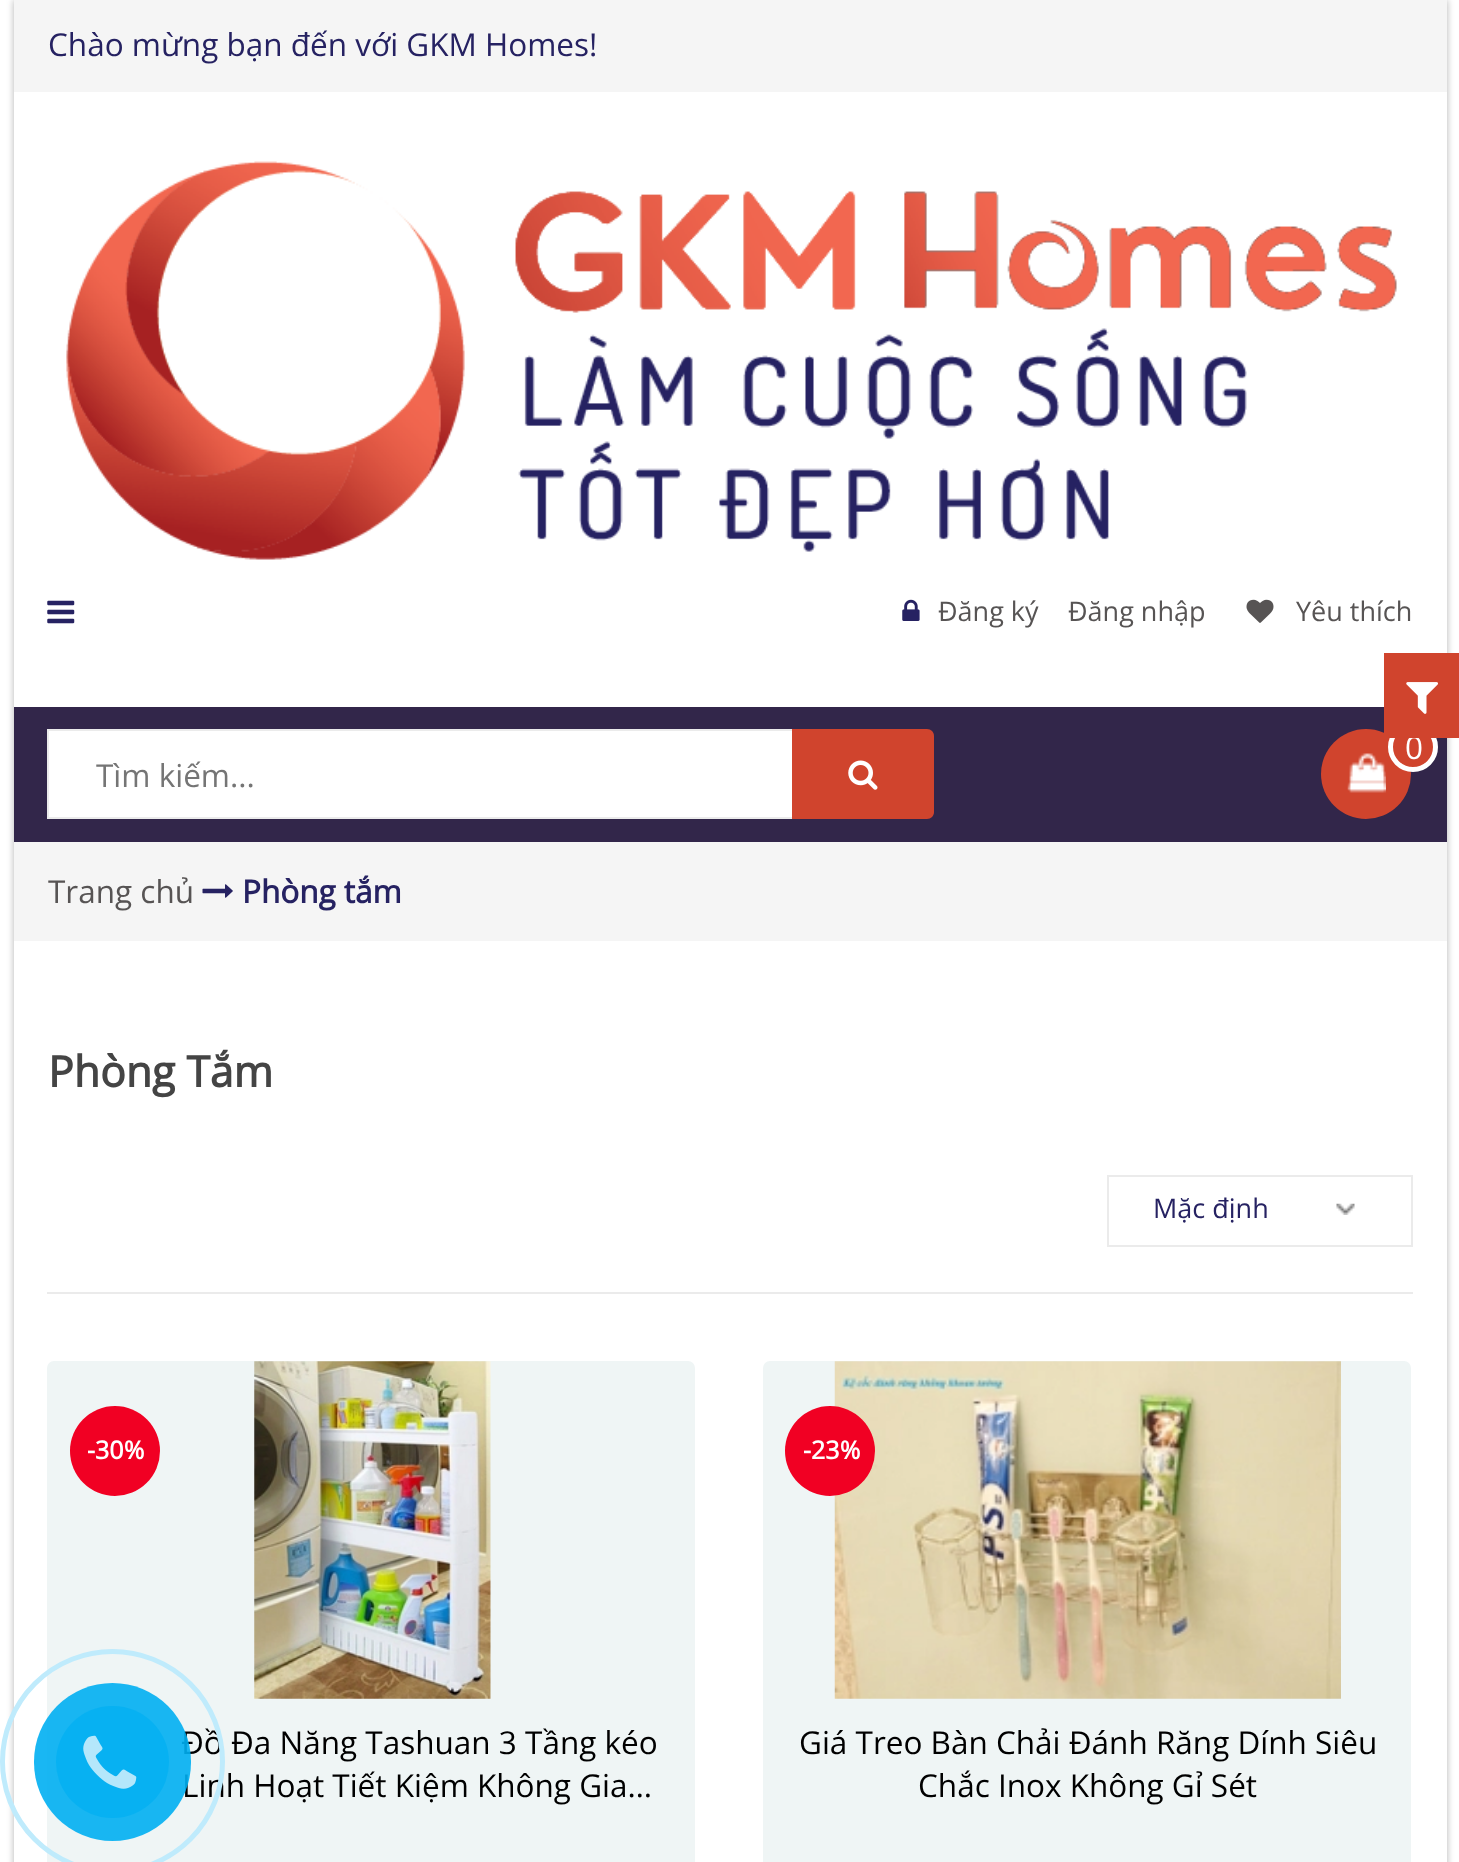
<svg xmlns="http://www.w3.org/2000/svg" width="1459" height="1862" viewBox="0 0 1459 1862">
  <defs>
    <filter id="blur1" x="-50%" y="-200%" width="200%" height="500%"><feGaussianBlur stdDeviation="3.5"/></filter>
  </defs>
  <rect width="100%" height="100%" fill="#ffffff"/>
  <rect x="14" y="0" width="1433" height="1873" fill="#000000" fill-opacity="0.3" filter="url(#blur1)"/>
  <rect x="14" y="92" width="1433" height="1770" fill="#ffffff"/>
  <rect x="14" y="0" width="1433" height="92" fill="#f5f5f5"/>
  <text x="48" y="56" font-family="Open Sans" font-size="31.5" fill="#262262">Chào mừng bạn đến với GKM Homes!</text>
  <image x="66" y="161" width="1331" height="399" href="img1.png"/>
  <image x="47" y="600" width="28" height="24" href="img2.png"/>
  <image x="902" y="599" width="18" height="22" href="img3.png"/>
  <text x="938" y="621" font-family="Open Sans" font-size="27" fill="#575454">Đăng ký</text>
  <text x="1068" y="621" font-family="Open Sans" font-size="27" fill="#575454">Đăng nhập</text>
  <image x="1246" y="599" width="28" height="24" href="img4.png"/>
  <text x="1296" y="621" font-family="Open Sans" font-size="27" fill="#575454">Yêu thích</text>
  <rect x="14" y="707" width="1433" height="135" fill="#32264a"/>
  <circle cx="1366" cy="774" r="45" fill="#d0442d"/>
  <circle cx="1413" cy="747" r="22.5" fill="#d0442d" stroke="#ffffff" stroke-width="5"/>
  <text x="1405" y="759" font-family="Open Sans" font-size="31.5" fill="#ffffff">0</text>
  <image x="1347" y="753" width="39" height="40" href="img5.png"/>
  <rect x="48" y="730" width="745" height="88" fill="#ffffff" stroke="#ebebeb" stroke-width="2"/>
  <text x="96" y="787" font-family="Open Sans" font-size="31.5" fill="#757575">Tìm kiếm...</text>
  <path d="M792 729H927C931 729 934 732 934 736V812C934 816 931 819 927 819H792Z" fill="#d0442d"/>
  <image x="848" y="760" width="30" height="30" href="img6.png"/>
  <rect x="14" y="842" width="1433" height="99" fill="#f5f5f5"/>
  <text x="48" y="903" font-family="Open Sans" font-size="31.5" fill="#575454">Trang chủ</text>
  <image x="202" y="884" width="31" height="14" href="img7.png"/>
  <text x="242" y="903" font-family="Open Sans" font-size="31.5" font-weight="bold" fill="#262262">Phòng tắm</text>
  <rect x="1384" y="653" width="75" height="85" fill="#d0442d"/>
  <image x="1406" y="682" width="32" height="32" href="img8.png"/>
  <text x="48" y="1087" font-family="Open Sans" font-size="42.75" font-weight="bold" fill="#444444">Phòng Tắm</text>
  <rect x="47" y="1292" width="1366" height="2" fill="#ebebeb"/>
  <image x="1336" y="1203" width="19" height="12" href="img9.png"/>
  <rect x="1108" y="1176" width="304" height="70" fill="none" stroke="#ebebeb" stroke-width="2"/>
  <text x="1153" y="1218" font-family="Open Sans" font-size="27" fill="#262262">Mặc định</text>
  <rect x="47" y="1361" width="648" height="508" rx="7" fill="#eff5f5"/>
  <circle cx="115" cy="1451" r="45" fill="#f10023"/>
  <text x="87" y="1459" font-family="Open Sans" font-size="25" font-weight="bold" fill="#ffffff">-30%</text>
  <image x="254" y="1361" width="237" height="338" href="img10.png"/>
  <text x="181" y="1754" font-family="Open Sans" font-size="31.5" fill="#000000">Đồ Đa Năng Tashuan 3 Tầng kéo</text>
  <text x="182" y="1797" font-family="Open Sans" font-size="31.5" fill="#000000">Linh Hoạt Tiết Kiệm Không Gia…</text>
  <rect x="763" y="1361" width="648" height="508" rx="7" fill="#eff5f5"/>
  <image x="834" y="1361" width="507" height="338" href="img11.png"/>
  <circle cx="830" cy="1451" r="45" fill="#f10023"/>
  <text x="803" y="1459" font-family="Open Sans" font-size="25" font-weight="bold" fill="#ffffff">-23%</text>
  <text x="799" y="1754" font-family="Open Sans" font-size="31.5" fill="#000000">Giá Treo Bàn Chải Đánh Răng Dính Siêu</text>
  <text x="918" y="1797" font-family="Open Sans" font-size="31.5" fill="#000000">Chắc Inox Không Gỉ Sét</text>
  <circle cx="112.5" cy="1761.5" r="110" fill="none" stroke="#bfebfc" stroke-width="5"/>
  <rect x="34" y="1683" width="157" height="158" rx="78.5" fill="#00aff2" fill-opacity="0.9"/>
  <rect x="56" y="1706" width="113" height="112" rx="56" fill="#00aff2" fill-opacity="0.7"/>
  <image x="83" y="1735" width="54" height="54" href="img12.png"/>
</svg>
